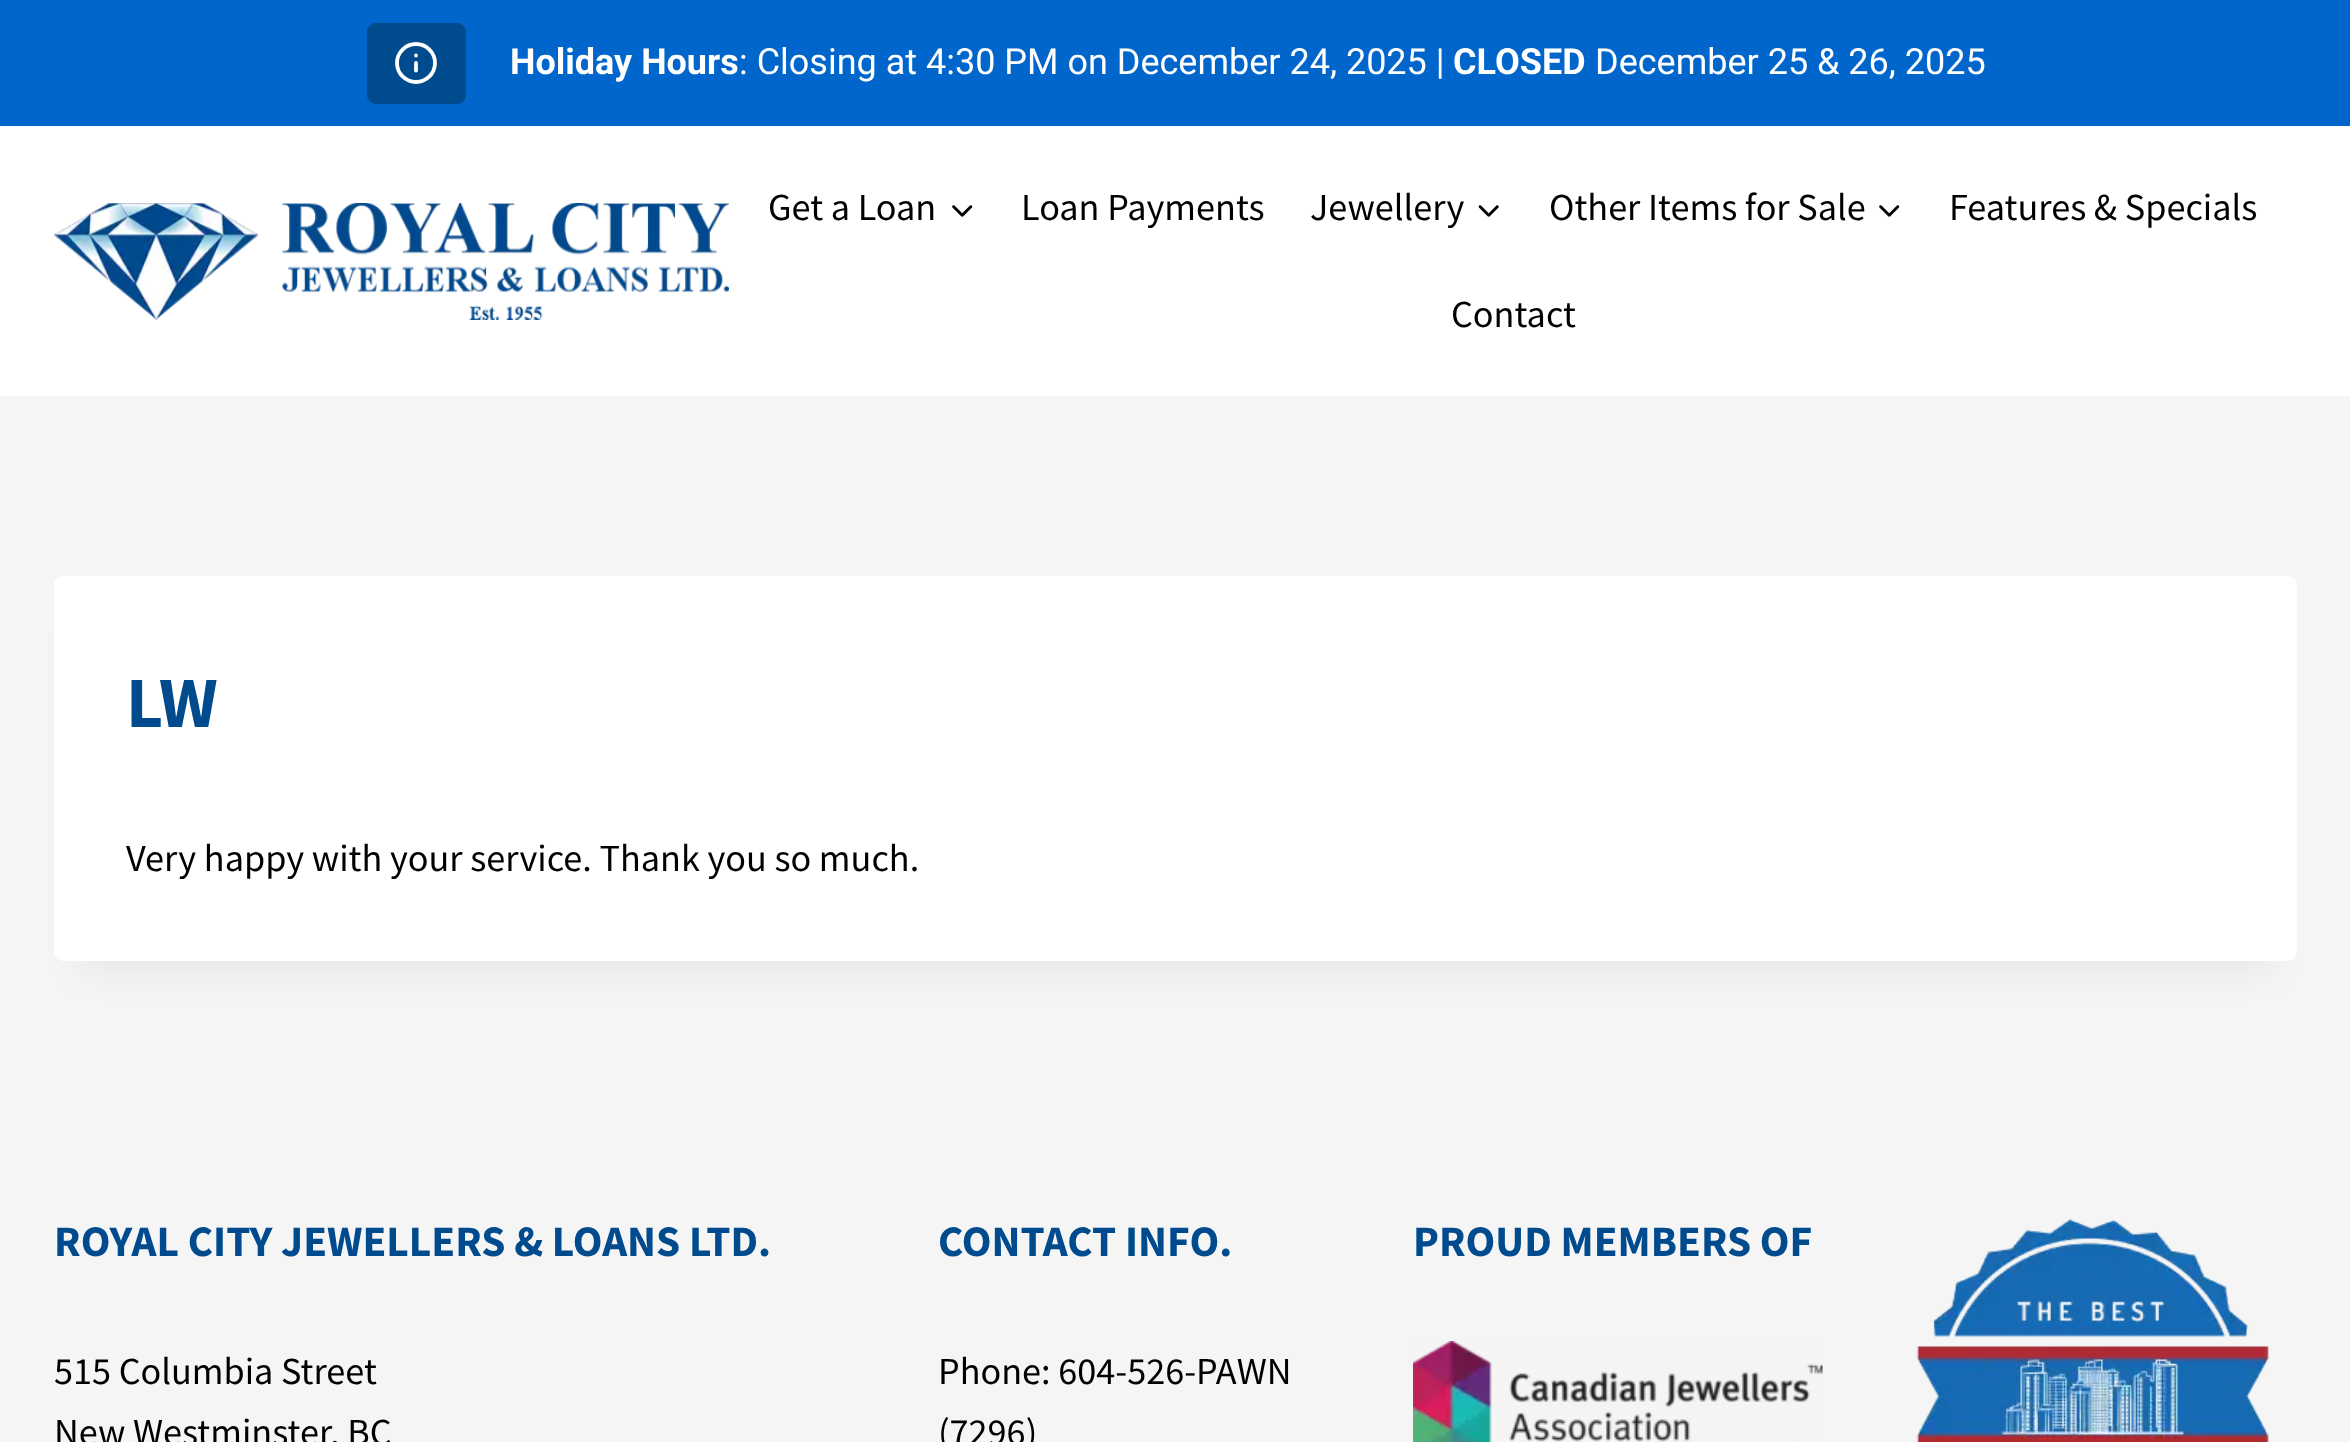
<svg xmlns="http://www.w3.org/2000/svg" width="2350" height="1442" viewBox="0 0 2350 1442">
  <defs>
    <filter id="blur1" x="-50%" y="-200%" width="200%" height="500%"><feGaussianBlur stdDeviation="17"/></filter>
  </defs>
  <rect width="100%" height="100%" fill="#f5f5f5"/>
  <rect x="0" y="0" width="2350" height="126" fill="#0066cc"/>
  <rect x="367" y="23" width="99" height="81" rx="9" fill="#004a8e"/>
  <circle cx="416" cy="63" r="19" fill="none" stroke="#ffffff" stroke-width="3.8"/>
  <path d="M416 70.5V63M416 55.5H416" fill="none" stroke="#ffffff" stroke-width="3.8" stroke-linecap="round" stroke-linejoin="round"/>
  <text x="510" y="74" font-family="Roboto" font-size="36" font-weight="bold" fill="#ffffff">Holiday Hours</text>
  <text x="739" y="74" font-family="Roboto" font-size="36" fill="#ffffff">: Closing at 4:30 PM on December 24, 2025 |</text>
  <text x="1453" y="74" font-family="Roboto" font-size="36" font-weight="bold" fill="#ffffff">CLOSED</text>
  <text x="1595" y="74" font-family="Roboto" font-size="36" fill="#ffffff">December 25 &amp; 26, 2025</text>
  <rect x="0" y="126" width="2350" height="270" fill="#ffffff"/>
  <image x="54" y="203" width="675" height="117" href="img1.png"/>
  <text x="768" y="220" font-family="Source Sans Pro" font-size="38.25" fill="#000000">Get a Loan</text>
  <image x="952" y="205" width="21" height="12" href="img2.png"/>
  <text x="1021" y="220" font-family="Source Sans Pro" font-size="38.25" fill="#000000">Loan Payments</text>
  <text x="1310" y="220" font-family="Source Sans Pro" font-size="38.25" fill="#000000">Jewellery</text>
  <image x="1478" y="205" width="21" height="12" href="img3.png"/>
  <text x="1549" y="220" font-family="Source Sans Pro" font-size="38.25" fill="#000000">Other Items for Sale</text>
  <image x="1879" y="205" width="21" height="12" href="img2.png"/>
  <text x="1949" y="220" font-family="Source Sans Pro" font-size="38.25" fill="#000000">Features &amp; Specials</text>
  <text x="1451" y="327" font-family="Source Sans Pro" font-size="38.25" fill="#000000">Contact</text>
  <rect x="77" y="632" width="2198" height="340" fill="#000000" fill-opacity="0.05" filter="url(#blur1)"/>
  <rect x="54" y="576" width="2243" height="385" rx="9" fill="#ffffff"/>
  <text x="126" y="727" font-family="Source Sans Pro" font-size="72" font-weight="bold" fill="#004a8e">LW</text>
  <text x="126" y="871" font-family="Source Sans Pro" font-size="38.25" fill="#000000">Very happy with your service. Thank you so much.</text>
  <text x="54" y="1256" font-family="Source Sans Pro" font-size="43.5" font-weight="bold" fill="#004a8e">ROYAL CITY JEWELLERS &amp; LOANS LTD.</text>
  <text x="54" y="1384" font-family="Source Sans Pro" font-size="38.25" fill="#000000">515 Columbia Street</text>
  <text x="54" y="1445" font-family="Source Sans Pro" font-size="38.25" fill="#000000">New Westminster, BC</text>
  <text x="938" y="1256" font-family="Source Sans Pro" font-size="43.5" font-weight="bold" fill="#004a8e">CONTACT INFO.</text>
  <text x="938" y="1384" font-family="Source Sans Pro" font-size="38.25" fill="#000000">Phone: 604-526-PAWN</text>
  <text x="938" y="1445" font-family="Source Sans Pro" font-size="38.25" fill="#000000">(7296)</text>
  <text x="1413" y="1256" font-family="Source Sans Pro" font-size="43.5" font-weight="bold" fill="#004a8e">PROUD MEMBERS OF</text>
  <image x="1413" y="1341" width="410" height="101" href="img4.png"/>
  <image x="1916" y="1219" width="353" height="223" href="img5.png"/>
</svg>
